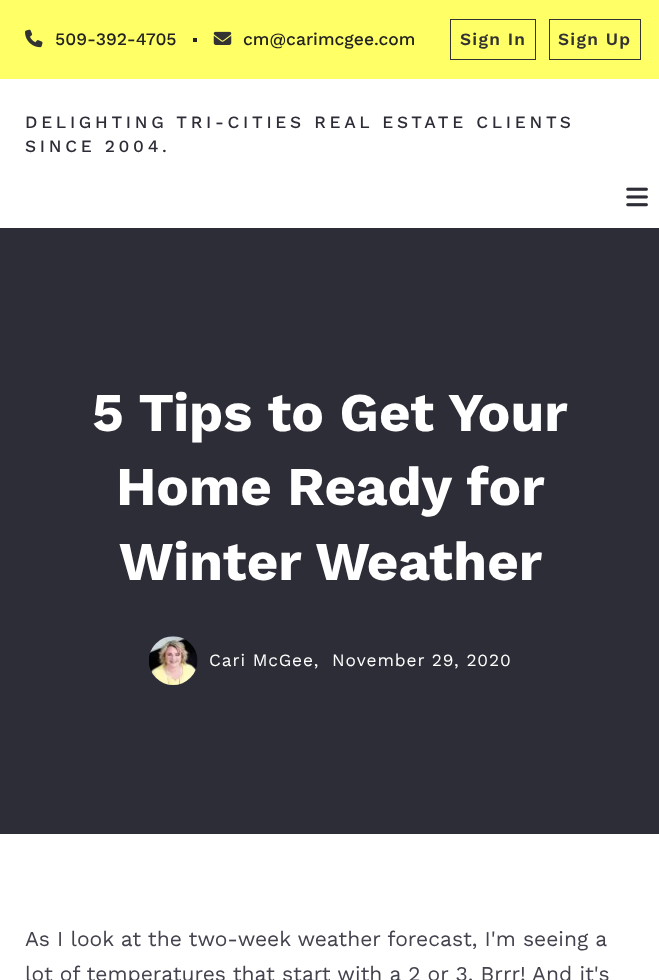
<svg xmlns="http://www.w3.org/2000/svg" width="659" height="980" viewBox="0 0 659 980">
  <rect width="100%" height="100%" fill="#ffffff"/>
  <rect x="0" y="0" width="659" height="79" fill="#ffff66"/>
  <image x="25" y="29" width="18" height="19" href="img1.png"/>
  <text x="55" y="45" font-family="Work Sans" font-size="17.5" font-weight="500" fill="#222222">509-392-4705</text>
  <rect x="193" y="38" width="4" height="4" fill="#222222"/>
  <image x="213" y="31" width="19" height="14" href="img2.png"/>
  <text x="243" y="45" font-family="Work Sans" font-size="17.5" font-weight="500" fill="#222222">cm@carimcgee.com</text>
  <rect x="450.5" y="19.5" width="85" height="40" fill="none" stroke="#333333"/>
  <text x="460" y="45" font-family="Work Sans" font-size="17.3" font-weight="600" letter-spacing="1.25" fill="#333333">Sign In</text>
  <rect x="549.5" y="19.5" width="91" height="40" fill="none" stroke="#333333"/>
  <text x="558" y="45" font-family="Work Sans" font-size="17.3" font-weight="600" letter-spacing="1.25" fill="#333333">Sign Up</text>
  <text x="25" y="128" font-family="Work Sans" font-size="17.3" font-weight="500" letter-spacing="3.7" fill="#2d2d37">DELIGHTING TRI-CITIES REAL ESTATE CLIENTS</text>
  <text x="25" y="152" font-family="Work Sans" font-size="17.3" font-weight="500" letter-spacing="3.7" fill="#2d2d37">SINCE 2004.</text>
  <image x="626" y="187" width="22" height="20" href="img3.png"/>
  <rect x="0" y="228" width="659" height="606" fill="#2d2d37"/>
  <text x="92" y="431" font-family="Work Sans" font-size="54.5" font-weight="bold" fill="#ffffff">5 Tips to Get Your</text>
  <text x="116" y="505" font-family="Work Sans" font-size="54.5" font-weight="bold" fill="#ffffff">Home Ready for</text>
  <text x="119" y="580" font-family="Work Sans" font-size="54.5" font-weight="bold" fill="#ffffff">Winter Weather</text>
  <image x="149" y="636" width="49" height="49" href="img4.png"/>
  <text x="209" y="666" font-family="Work Sans" font-size="17.3" letter-spacing="0.9" fill="#ffffff">Cari McGee,</text>
  <text x="332" y="666" font-family="Work Sans" font-size="17.3" letter-spacing="0.9" fill="#ffffff">November 29, 2020</text>
  <text x="25" y="946" font-family="Work Sans" font-size="21.05" fill="#43434e">As I look at the two-week weather forecast, I'm seeing a</text>
  <text x="25" y="981" font-family="Work Sans" font-size="21.05" fill="#43434e">lot of temperatures that start with a 2 or 3. Brrr! And it's</text>
</svg>
